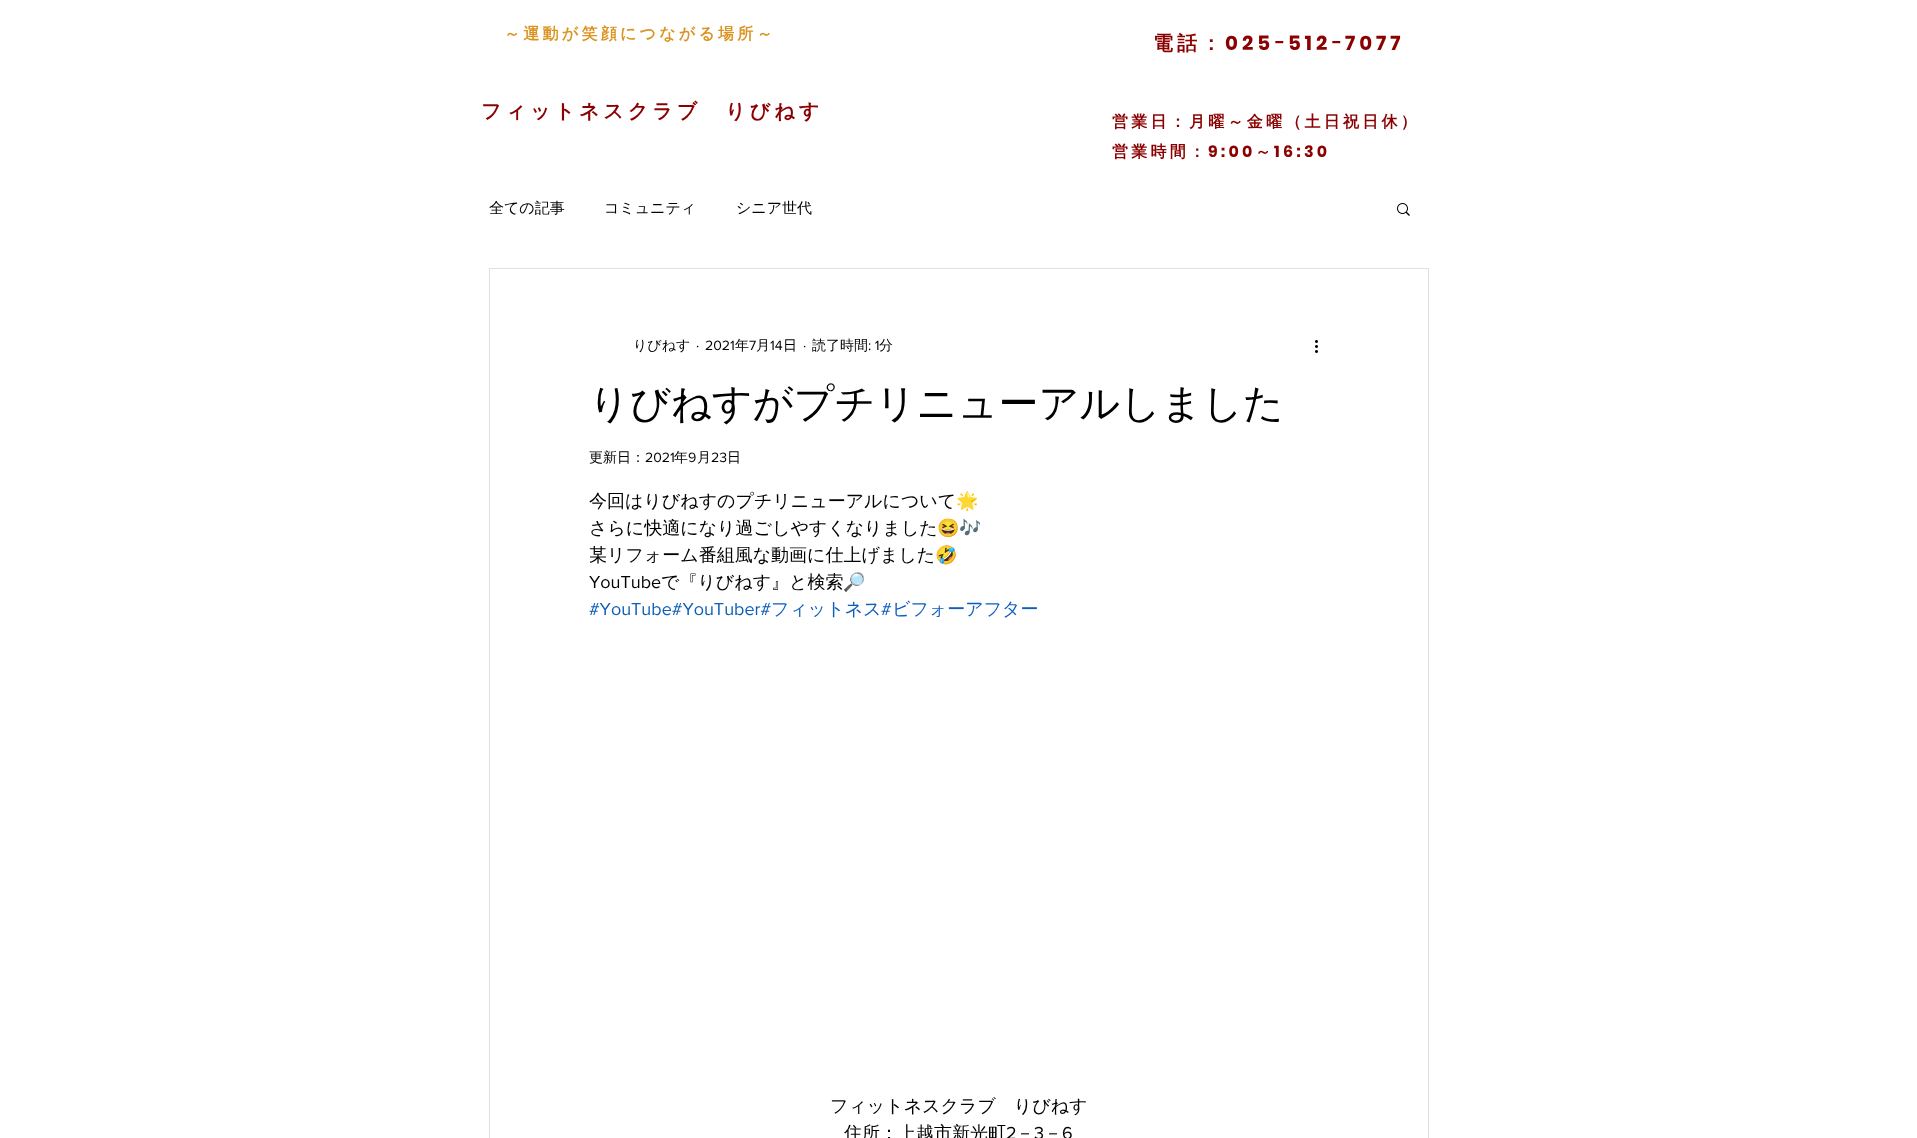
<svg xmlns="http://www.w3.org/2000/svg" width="1917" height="1138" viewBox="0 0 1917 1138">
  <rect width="100%" height="100%" fill="#ffffff"/>
  <text x="504" y="39" font-family="WenQuanYi Zen Hei" font-size="16" font-weight="bold" letter-spacing="3.25" fill="#db9421">～運動が笑顔につながる場所～</text>
  <text x="1153" y="50" font-family="WenQuanYi Zen Hei" font-size="20" font-weight="bold" letter-spacing="4" fill="#8b0000">電話：</text>
  <text x="1225" y="50" font-family="Poppins" font-size="20" font-weight="bold" letter-spacing="4" fill="#8b0000">025</text>
  <text x="1274" y="50" font-family="IPAPGothic" font-size="20" font-weight="bold" letter-spacing="4" fill="#8b0000">ｰ</text>
  <text x="1288" y="50" font-family="Poppins" font-size="20" font-weight="bold" letter-spacing="4" fill="#8b0000">512</text>
  <text x="1331" y="50" font-family="IPAPGothic" font-size="20" font-weight="bold" letter-spacing="4" fill="#8b0000">ｰ</text>
  <text x="1345" y="50" font-family="Poppins" font-size="20" font-weight="bold" letter-spacing="4" fill="#8b0000">7077</text>
  <text x="481" y="118" font-family="WenQuanYi Zen Hei" font-size="20" font-weight="bold" letter-spacing="4" fill="#8b0000">フィットネスクラブ　りびねす</text>
  <text x="1112" y="127" font-family="WenQuanYi Zen Hei" font-size="16" font-weight="bold" letter-spacing="3.25" fill="#8b0000">営業日：月曜～金曜（土日祝日休）</text>
  <text x="1112" y="157" font-family="WenQuanYi Zen Hei" font-size="16" font-weight="bold" letter-spacing="3.25" fill="#8b0000">営業時間：</text>
  <text x="1208" y="157" font-family="Poppins" font-size="16" font-weight="bold" letter-spacing="3.25" fill="#8b0000">9:00</text>
  <text x="1255" y="157" font-family="WenQuanYi Zen Hei" font-size="16" font-weight="bold" letter-spacing="3.25" fill="#8b0000">～</text>
  <text x="1274" y="157" font-family="Poppins" font-size="16" font-weight="bold" letter-spacing="3.25" fill="#8b0000">16:30</text>
  <text x="489" y="213" font-family="WenQuanYi Zen Hei" font-size="15" font-weight="500" fill="#000000">全ての記事</text>
  <text x="604" y="213" font-family="WenQuanYi Zen Hei" font-size="15" font-weight="500" fill="#000000">コミュニティ</text>
  <text x="736" y="213" font-family="WenQuanYi Zen Hei" font-size="15" font-weight="500" fill="#000000">シニア世代</text>
  <image x="1397" y="203" width="13" height="13" href="img1.png"/>
  <rect x="489.5" y="268.5" width="939" height="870" fill="none" stroke="#dfdfdf"/>
  <text x="633" y="350" font-family="WenQuanYi Zen Hei" font-size="14" font-weight="500" fill="#000000">りびねす</text>
  <text x="696" y="350" font-family="'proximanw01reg'" font-size="14" fill="#000000">·</text>
  <text x="705" y="350" font-family="'proximanw01reg'" font-size="14" fill="#000000">2021</text>
  <text x="735" y="350" font-family="WenQuanYi Zen Hei" font-size="14" font-weight="500" fill="#000000">年</text>
  <text x="749" y="350" font-family="'proximanw01reg'" font-size="14" fill="#000000">7</text>
  <text x="756" y="350" font-family="WenQuanYi Zen Hei" font-size="14" font-weight="500" fill="#000000">月</text>
  <text x="770" y="350" font-family="'proximanw01reg'" font-size="14" fill="#000000">14</text>
  <text x="783" y="350" font-family="WenQuanYi Zen Hei" font-size="14" font-weight="500" fill="#000000">日</text>
  <text x="803" y="350" font-family="'proximanw01reg'" font-size="14" fill="#000000">·</text>
  <text x="812" y="350" font-family="WenQuanYi Zen Hei" font-size="14" font-weight="500" fill="#000000">読了時間</text>
  <text x="868" y="350" font-family="'proximanw01reg'" font-size="14" fill="#000000">: 1</text>
  <text x="879" y="350" font-family="WenQuanYi Zen Hei" font-size="14" font-weight="500" fill="#000000">分</text>
  <image x="1315" y="340" width="3" height="13" href="img2.png"/>
  <text x="589" y="417" font-family="WenQuanYi Zen Hei" font-size="40" font-weight="500" fill="#000000">りびねすがプチリニューアルしました</text>
  <text x="589" y="462" font-family="WenQuanYi Zen Hei" font-size="14" font-weight="500" fill="#000000">更新日：</text>
  <text x="645" y="462" font-family="'proximanw01reg'" font-size="14" fill="#000000">2021</text>
  <text x="674" y="462" font-family="WenQuanYi Zen Hei" font-size="14" font-weight="500" fill="#000000">年</text>
  <text x="688" y="462" font-family="'proximanw01reg'" font-size="14" fill="#000000">9</text>
  <text x="697" y="462" font-family="WenQuanYi Zen Hei" font-size="14" font-weight="500" fill="#000000">月</text>
  <text x="711" y="462" font-family="'proximanw01reg'" font-size="14" fill="#000000">23</text>
  <text x="727" y="462" font-family="WenQuanYi Zen Hei" font-size="14" font-weight="500" fill="#000000">日</text>
  <text x="589" y="507" font-family="WenQuanYi Zen Hei" font-size="18" font-weight="500" fill="#000000">今回はりびねすのプチリニューアルについて</text>
  <text x="956" y="507" font-family="Noto Color Emoji" font-size="18" fill="#000000">🌟</text>
  <text x="589" y="534" font-family="WenQuanYi Zen Hei" font-size="18" font-weight="500" fill="#000000">さらに快適になり過ごしやすくなりました</text>
  <text x="937" y="534" font-family="Noto Color Emoji" font-size="18" fill="#000000">😆🎶</text>
  <text x="589" y="561" font-family="WenQuanYi Zen Hei" font-size="18" font-weight="500" fill="#000000">某リフォーム番組風な動画に仕上げました</text>
  <text x="935" y="561" font-family="Noto Color Emoji" font-size="18" fill="#000000">🤣</text>
  <text x="589" y="588" font-family="'proximanw01reg'" font-size="18" fill="#000000">YouTube</text>
  <text x="661" y="588" font-family="WenQuanYi Zen Hei" font-size="18" font-weight="500" fill="#000000">で『りびねす』と検索</text>
  <text x="843" y="588" font-family="Noto Color Emoji" font-size="18" fill="#000000">🔎</text>
  <text x="589" y="615" font-family="'proximanw01reg'" font-size="18" fill="#0d5eba">#YouTube#YouTuber#</text>
  <text x="771" y="615" font-family="WenQuanYi Zen Hei" font-size="18" font-weight="500" fill="#0d5eba">フィットネス</text>
  <text x="881" y="615" font-family="'proximanw01reg'" font-size="18" fill="#0d5eba">#</text>
  <text x="892" y="615" font-family="WenQuanYi Zen Hei" font-size="18" font-weight="500" fill="#0d5eba">ビフォーアフター</text>
  <text x="830" y="1112" font-family="WenQuanYi Zen Hei" font-size="18" font-weight="500" fill="#000000">フィットネスクラブ　りびねす</text>
  <text x="844" y="1139" font-family="WenQuanYi Zen Hei" font-size="18" font-weight="500" fill="#000000">住所：上越市新光町</text>
  <text x="1006" y="1139" font-family="'proximanw01reg'" font-size="18" fill="#000000">2</text>
  <text x="1016" y="1139" font-family="WenQuanYi Zen Hei" font-size="18" font-weight="500" fill="#000000">－</text>
  <text x="1034" y="1139" font-family="'proximanw01reg'" font-size="18" fill="#000000">3</text>
  <text x="1044" y="1139" font-family="WenQuanYi Zen Hei" font-size="18" font-weight="500" fill="#000000">－</text>
  <text x="1062" y="1139" font-family="'proximanw01reg'" font-size="18" fill="#000000">6</text>
</svg>
